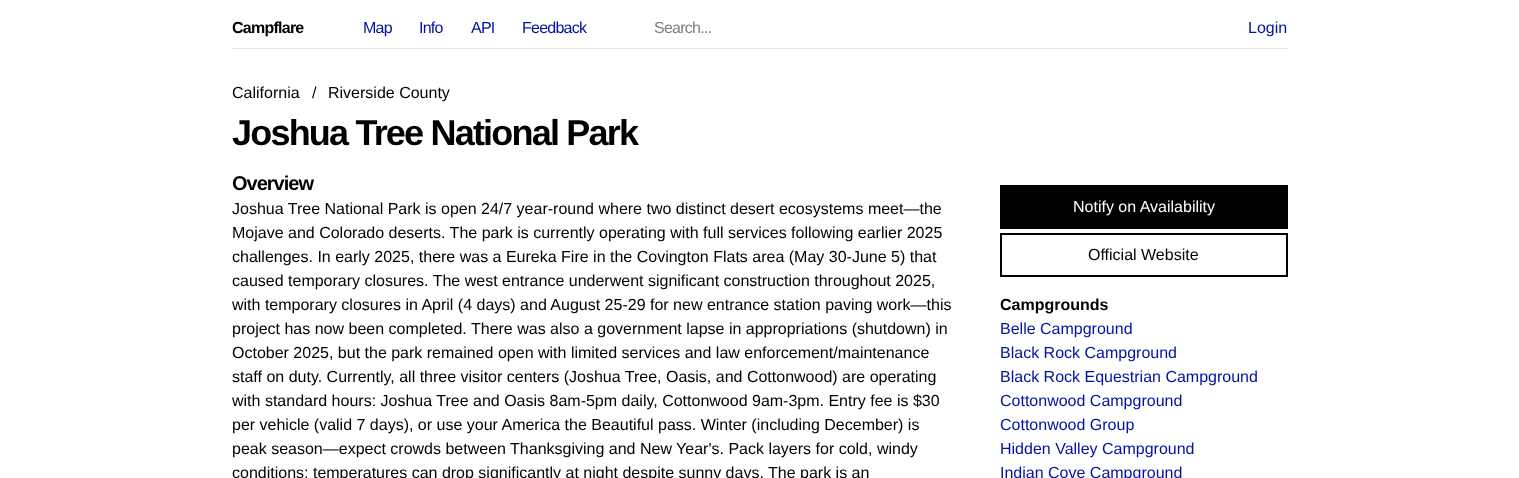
<svg xmlns="http://www.w3.org/2000/svg" width="1519" height="478" viewBox="0 0 1519 478">
  <rect width="100%" height="100%" fill="#ffffff"/>
  <rect x="232" y="48" width="1056" height="1" fill="#e5e7eb"/>
  <text x="232" y="33" font-family="Liberation Sans" font-size="16" font-weight="bold" letter-spacing="-0.75" fill="#000000">Campflare</text>
  <text x="363" y="33" font-family="Liberation Sans" font-size="16" letter-spacing="-0.75" fill="#0011a1">Map</text>
  <text x="419" y="33" font-family="Liberation Sans" font-size="16" letter-spacing="-0.75" fill="#0011a1">Info</text>
  <text x="471" y="33" font-family="Liberation Sans" font-size="16" letter-spacing="-0.75" fill="#0011a1">API</text>
  <text x="522" y="33" font-family="Liberation Sans" font-size="16" letter-spacing="-0.75" fill="#0011a1">Feedback</text>
  <text x="654" y="33" font-family="Liberation Sans" font-size="16" letter-spacing="-0.75" fill="#808080">Search...</text>
  <text x="1248" y="33" font-family="Liberation Sans" font-size="16" fill="#0011a1">Login</text>
  <text x="232" y="98" font-family="Liberation Sans" font-size="16" fill="#000000">California</text>
  <text x="312" y="98" font-family="Liberation Sans" font-size="16" fill="#000000">/</text>
  <text x="328" y="98" font-family="Liberation Sans" font-size="16" fill="#000000">Riverside County</text>
  <text x="232" y="145" font-family="Liberation Sans" font-size="36" font-weight="bold" letter-spacing="-1.8" fill="#000000">Joshua Tree National Park</text>
  <text x="232" y="190" font-family="Liberation Sans" font-size="20" font-weight="bold" letter-spacing="-1" fill="#000000">Overview</text>
  <text x="232" y="214" font-family="Liberation Sans" font-size="16" fill="#000000">Joshua Tree National Park is open 24/7 year-round where two distinct desert ecosystems meet—the</text>
  <text x="232" y="238" font-family="Liberation Sans" font-size="16" fill="#000000">Mojave and Colorado deserts. The park is currently operating with full services following earlier 2025</text>
  <text x="232" y="262" font-family="Liberation Sans" font-size="16" fill="#000000">challenges. In early 2025, there was a Eureka Fire in the Covington Flats area (May 30-June 5) that</text>
  <text x="232" y="286" font-family="Liberation Sans" font-size="16" fill="#000000">caused temporary closures. The west entrance underwent significant construction throughout 2025,</text>
  <text x="232" y="310" font-family="Liberation Sans" font-size="16" fill="#000000">with temporary closures in April (4 days) and August 25-29 for new entrance station paving work—this</text>
  <text x="232" y="334" font-family="Liberation Sans" font-size="16" fill="#000000">project has now been completed. There was also a government lapse in appropriations (shutdown) in</text>
  <text x="232" y="358" font-family="Liberation Sans" font-size="16" fill="#000000">October 2025, but the park remained open with limited services and law enforcement/maintenance</text>
  <text x="232" y="382" font-family="Liberation Sans" font-size="16" fill="#000000">staff on duty. Currently, all three visitor centers (Joshua Tree, Oasis, and Cottonwood) are operating</text>
  <text x="232" y="406" font-family="Liberation Sans" font-size="16" fill="#000000">with standard hours: Joshua Tree and Oasis 8am-5pm daily, Cottonwood 9am-3pm. Entry fee is $30</text>
  <text x="232" y="430" font-family="Liberation Sans" font-size="16" fill="#000000">per vehicle (valid 7 days), or use your America the Beautiful pass. Winter (including December) is</text>
  <text x="232" y="454" font-family="Liberation Sans" font-size="16" fill="#000000">peak season—expect crowds between Thanksgiving and New Year's. Pack layers for cold, windy</text>
  <text x="232" y="478" font-family="Liberation Sans" font-size="16" fill="#000000">conditions; temperatures can drop significantly at night despite sunny days. The park is an</text>
  <rect x="1000" y="185" width="288" height="44" fill="#000000"/>
  <text x="1073" y="212" font-family="Liberation Sans" font-size="16" fill="#ffffff">Notify on Availability</text>
  <rect x="1001" y="234" width="286" height="42" fill="none" stroke="#000000" stroke-width="2"/>
  <text x="1088" y="260" font-family="Liberation Sans" font-size="16" fill="#000000">Official Website</text>
  <text x="1000" y="310" font-family="Liberation Sans" font-size="16" font-weight="bold" fill="#000000">Campgrounds</text>
  <text x="1000" y="334" font-family="Liberation Sans" font-size="16" fill="#0011a1">Belle Campground</text>
  <text x="1000" y="358" font-family="Liberation Sans" font-size="16" fill="#0011a1">Black Rock Campground</text>
  <text x="1000" y="382" font-family="Liberation Sans" font-size="16" fill="#0011a1">Black Rock Equestrian Campground</text>
  <text x="1000" y="406" font-family="Liberation Sans" font-size="16" fill="#0011a1">Cottonwood Campground</text>
  <text x="1000" y="430" font-family="Liberation Sans" font-size="16" fill="#0011a1">Cottonwood Group</text>
  <text x="1000" y="454" font-family="Liberation Sans" font-size="16" fill="#0011a1">Hidden Valley Campground</text>
  <text x="1000" y="478" font-family="Liberation Sans" font-size="16" fill="#0011a1">Indian Cove Campground</text>
</svg>
